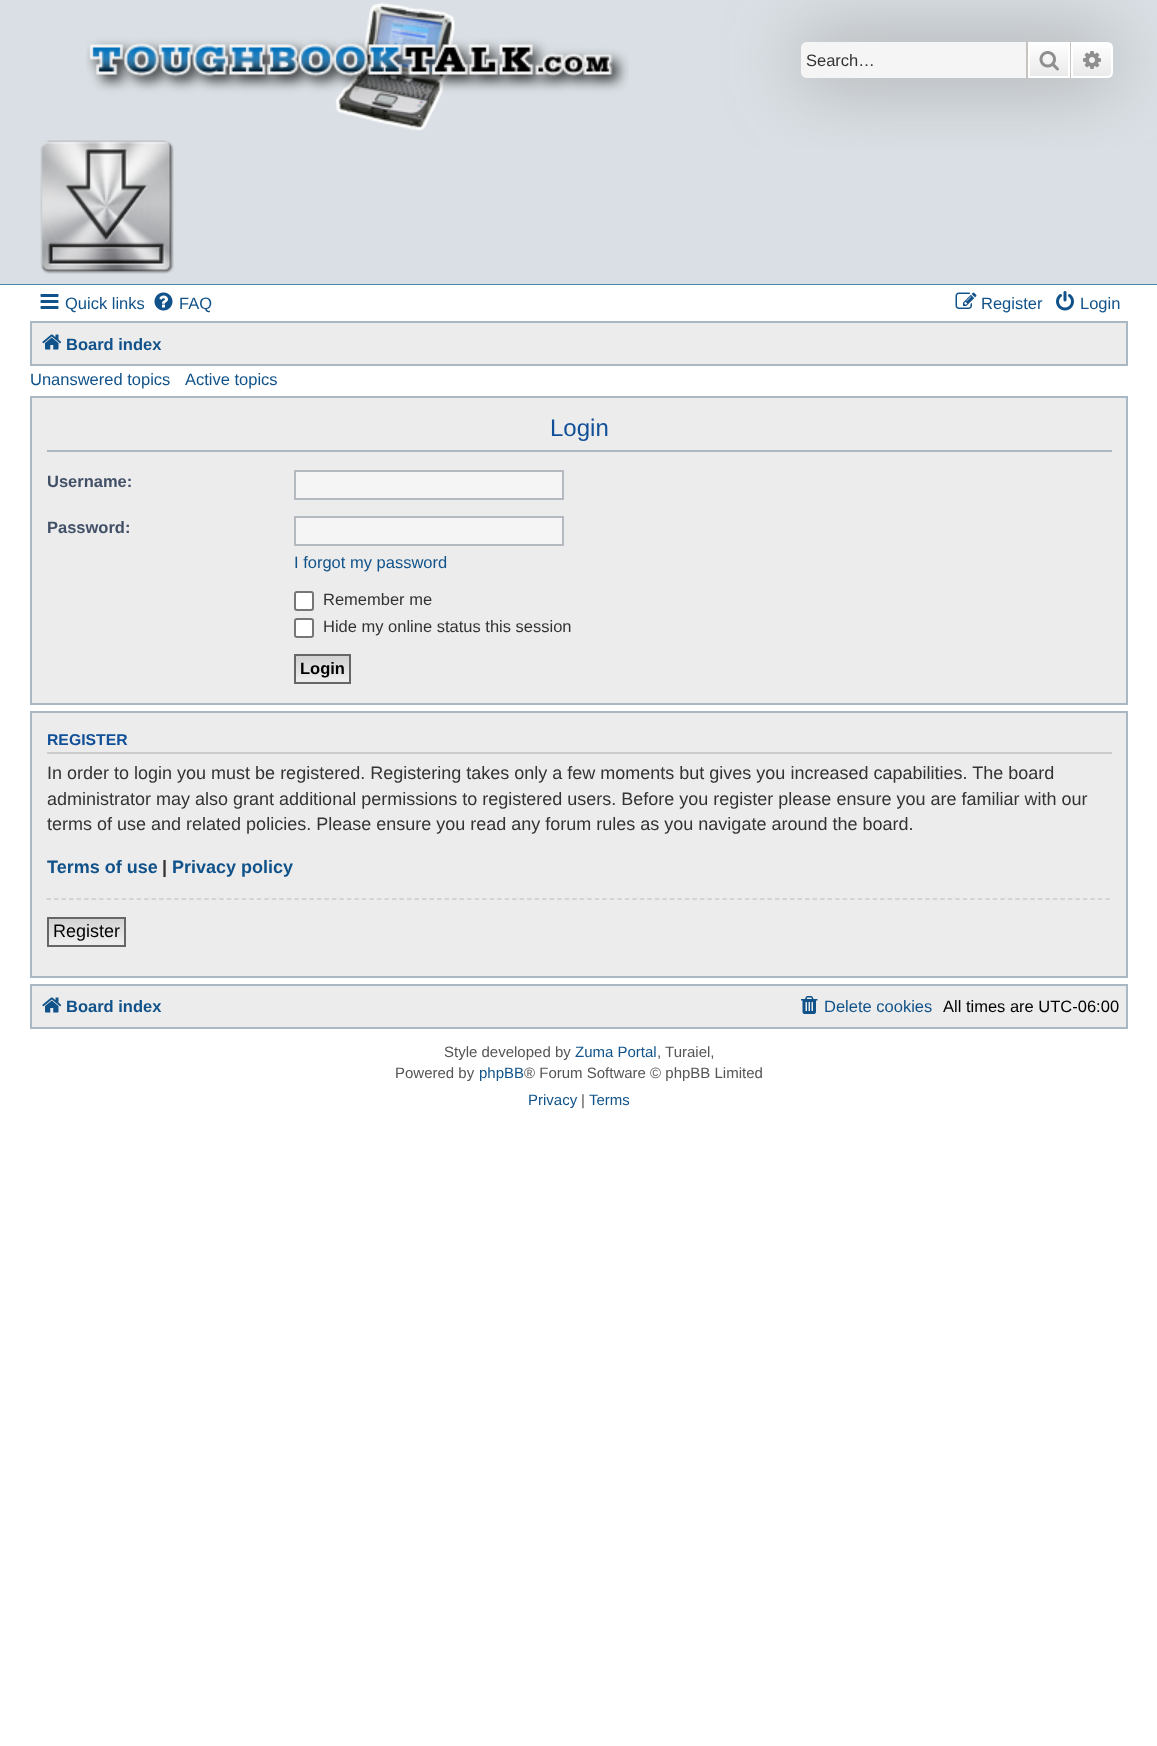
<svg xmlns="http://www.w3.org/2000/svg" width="1157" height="1746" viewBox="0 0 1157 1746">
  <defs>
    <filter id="blur1" x="-50%" y="-200%" width="200%" height="500%"><feGaussianBlur stdDeviation="37.5"/></filter>
    <linearGradient id="g1" gradientUnits="userSpaceOnUse" x1="1049" y1="42" x2="1049" y2="78"><stop offset="0" stop-color="#ffffff"/><stop offset="1" stop-color="#e9e9e9"/></linearGradient>
    <linearGradient id="g2" gradientUnits="userSpaceOnUse" x1="1092" y1="42" x2="1092" y2="78"><stop offset="0" stop-color="#ffffff"/><stop offset="1" stop-color="#e9e9e9"/></linearGradient>
    <linearGradient id="g3" gradientUnits="userSpaceOnUse" x1="323" y1="656" x2="323" y2="683"><stop offset="0" stop-color="#d2d2d2"/><stop offset="1" stop-color="#efefef"/></linearGradient>
    <clipPath id="clip1"><rect x="47" y="720" width="1065" height="249"/></clipPath>
    <linearGradient id="g4" gradientUnits="userSpaceOnUse" x1="86" y1="918" x2="86" y2="945"><stop offset="0" stop-color="#d2d2d2"/><stop offset="1" stop-color="#efefef"/></linearGradient>
  </defs>
  <rect width="100%" height="100%" fill="#ffffff"/>
  <rect x="0" y="0" width="1157" height="284" fill="#d9dfe4"/>
  <rect x="0" y="284" width="1157" height="1" fill="#4787a7"/>
  <image x="86" y="2" width="543" height="129" href="img1.png"/>
  <image x="40" y="140" width="134" height="134" href="img2.png"/>
  <rect x="801" y="42" width="312" height="36" rx="6" fill="#999999" filter="url(#blur1)"/>
  <path d="M807 42H1026V78H807C803.5 78 801 75.5 801 72V48C801 44.5 803.5 42 807 42Z" fill="#f5f5f5"/>
  <text x="806" y="66" font-family="Liberation Sans" font-size="16.5" fill="#333333">Search…</text>
  <rect x="1030" y="44" width="38" height="32" fill="url(#g1)"/>
  <rect x="1029" y="43" width="40" height="34" fill="none" stroke="#ffffff" stroke-width="2"/>
  <rect x="1070" y="42" width="1" height="36" fill="#c7c3bf"/>
  <rect x="1026" y="42" width="2" height="36" fill="#c7c3bf"/>
  <image x="1039" y="51" width="20" height="20" href="img3.png"/>
  <path d="M1072 43H1107C1110 43 1112 45 1112 48V72C1112 75 1110 77 1107 77H1072Z" fill="url(#g2)" stroke="#ffffff" stroke-width="2"/>
  <image x="1083" y="51" width="18" height="18" href="img4.png"/>
  <image x="40" y="294" width="19" height="15" href="img5.png"/>
  <text x="65" y="309" font-family="Liberation Sans" font-size="16.5" fill="#105289">Quick links</text>
  <image x="154" y="292" width="19" height="19" href="img6.png"/>
  <text x="179" y="309" font-family="Liberation Sans" font-size="16.5" fill="#105289">FAQ</text>
  <image x="955" y="292" width="22" height="17" href="img7.png"/>
  <text x="981" y="309" font-family="Liberation Sans" font-size="16.5" fill="#105289">Register</text>
  <image x="1056" y="291" width="18" height="20" href="img8.png"/>
  <text x="1080" y="309" font-family="Liberation Sans" font-size="16.5" fill="#105289">Login</text>
  <rect x="31" y="322" width="1096" height="43" fill="#ececec" stroke="#a9b8c2" stroke-width="2"/>
  <image x="42" y="334" width="20" height="16" href="img9.png"/>
  <text x="66" y="350" font-family="Liberation Sans" font-size="16.5" font-weight="bold" fill="#105289">Board index</text>
  <text x="30" y="385" font-family="Liberation Sans" font-size="16.5" fill="#105289">Unanswered topics</text>
  <text x="185" y="385" font-family="Liberation Sans" font-size="16.5" fill="#105289">Active topics</text>
  <rect x="31" y="397" width="1096" height="307" fill="#ececec" stroke="#a9b8c2" stroke-width="2"/>
  <rect x="47" y="450" width="1065" height="2" fill="#a9b8c2"/>
  <text x="550" y="436" font-family="Liberation Sans" font-size="24" fill="#115098">Login</text>
  <text x="47" y="487" font-family="Liberation Sans" font-size="16.5" font-weight="bold" fill="#425067">Username:</text>
  <rect x="295" y="471" width="268" height="28" fill="#f5f5f5" stroke="#b4bac0" stroke-width="2"/>
  <text x="47" y="533" font-family="Liberation Sans" font-size="16.5" font-weight="bold" fill="#425067">Password:</text>
  <rect x="295" y="517" width="268" height="28" fill="#f5f5f5" stroke="#b4bac0" stroke-width="2"/>
  <text x="294" y="568" font-family="Liberation Sans" font-size="16.5" fill="#105289">I forgot my password</text>
  <rect x="295" y="592" width="18" height="18" rx="2" fill="#ffffff" stroke="#767676" stroke-width="2"/>
  <text x="323" y="605" font-family="Liberation Sans" font-size="16.5" fill="#333333">Remember me</text>
  <rect x="295" y="619" width="18" height="18" rx="2" fill="#ffffff" stroke="#767676" stroke-width="2"/>
  <text x="323" y="632" font-family="Liberation Sans" font-size="16.5" fill="#333333">Hide my online status this session</text>
  <rect x="296" y="656" width="53" height="22" fill="url(#g3)"/>
  <rect x="295" y="655" width="55" height="28" fill="none" stroke="#666666" stroke-width="2"/>
  <text x="300" y="674" font-family="Liberation Sans" font-size="16.5" font-weight="bold" fill="#000000">Login</text>
  <rect x="31" y="712" width="1096" height="265" fill="#ececec" stroke="#a9b8c2" stroke-width="2"/>
  <rect x="47" y="752" width="1065" height="2" fill="#cccccc"/>
  <text x="47" y="745" font-family="Liberation Sans" font-size="15.75" font-weight="bold" fill="#115098">REGISTER</text>
  <text x="47" y="779" font-family="Liberation Sans" font-size="18" fill="#333333">In order to login you must be registered. Registering takes only a few moments but gives you increased capabilities. The board</text>
  <text x="47" y="805" font-family="Liberation Sans" font-size="18" fill="#333333">administrator may also grant additional permissions to registered users. Before you register please ensure you are familiar with our</text>
  <text x="47" y="830" font-family="Liberation Sans" font-size="18" fill="#333333">terms of use and related policies. Please ensure you read any forum rules as you navigate around the board.</text>
  <g clip-path="url(#clip1)">
    <text x="47" y="873" font-family="Liberation Sans" font-size="18" font-weight="bold" fill="#105289">Terms of use</text>
  </g>
  <text x="162" y="873" font-family="Liberation Sans" font-size="18" font-weight="bold" fill="#333333">|</text>
  <text x="172" y="873" font-family="Liberation Sans" font-size="18" font-weight="bold" fill="#105289">Privacy policy</text>
  <path d="M46.5 899H1111.5" fill="none" stroke="#cccccc" stroke-width="1.5" stroke-dasharray="4.5 3.01"/>
  <rect x="49" y="919" width="75" height="21" fill="url(#g4)"/>
  <rect x="48" y="918" width="77" height="28" fill="none" stroke="#666666" stroke-width="2"/>
  <text x="53" y="937" font-family="Liberation Sans" font-size="18" fill="#000000">Register</text>
  <rect x="31" y="985" width="1096" height="43" fill="#ececec" stroke="#a9b8c2" stroke-width="2"/>
  <image x="42" y="997" width="20" height="16" href="img9.png"/>
  <text x="66" y="1012" font-family="Liberation Sans" font-size="16.5" font-weight="bold" fill="#105289">Board index</text>
  <image x="801" y="996" width="17" height="18" href="img10.png"/>
  <text x="824" y="1012" font-family="Liberation Sans" font-size="16.5" fill="#105289">Delete cookies</text>
  <text x="943" y="1012" font-family="Liberation Sans" font-size="16.5" fill="#000000">All times are UTC-06:00</text>
  <text x="444" y="1057" font-family="Liberation Sans" font-size="15" fill="#555555">Style developed by</text>
  <text x="575" y="1057" font-family="Liberation Sans" font-size="15" fill="#105289">Zuma Portal</text>
  <text x="657" y="1057" font-family="Liberation Sans" font-size="15" fill="#555555">, Turaiel,</text>
  <text x="395" y="1078" font-family="Liberation Sans" font-size="15" fill="#555555">Powered by</text>
  <text x="479" y="1078" font-family="Liberation Sans" font-size="15" fill="#105289">phpBB</text>
  <text x="524" y="1078" font-family="Liberation Sans" font-size="15" fill="#555555">® Forum Software © phpBB Limited</text>
  <text x="528" y="1105" font-family="Liberation Sans" font-size="15" fill="#105289">Privacy</text>
  <text x="581" y="1105" font-family="Liberation Sans" font-size="15" fill="#555555">|</text>
  <text x="589" y="1105" font-family="Liberation Sans" font-size="15" fill="#105289">Terms</text>
</svg>
